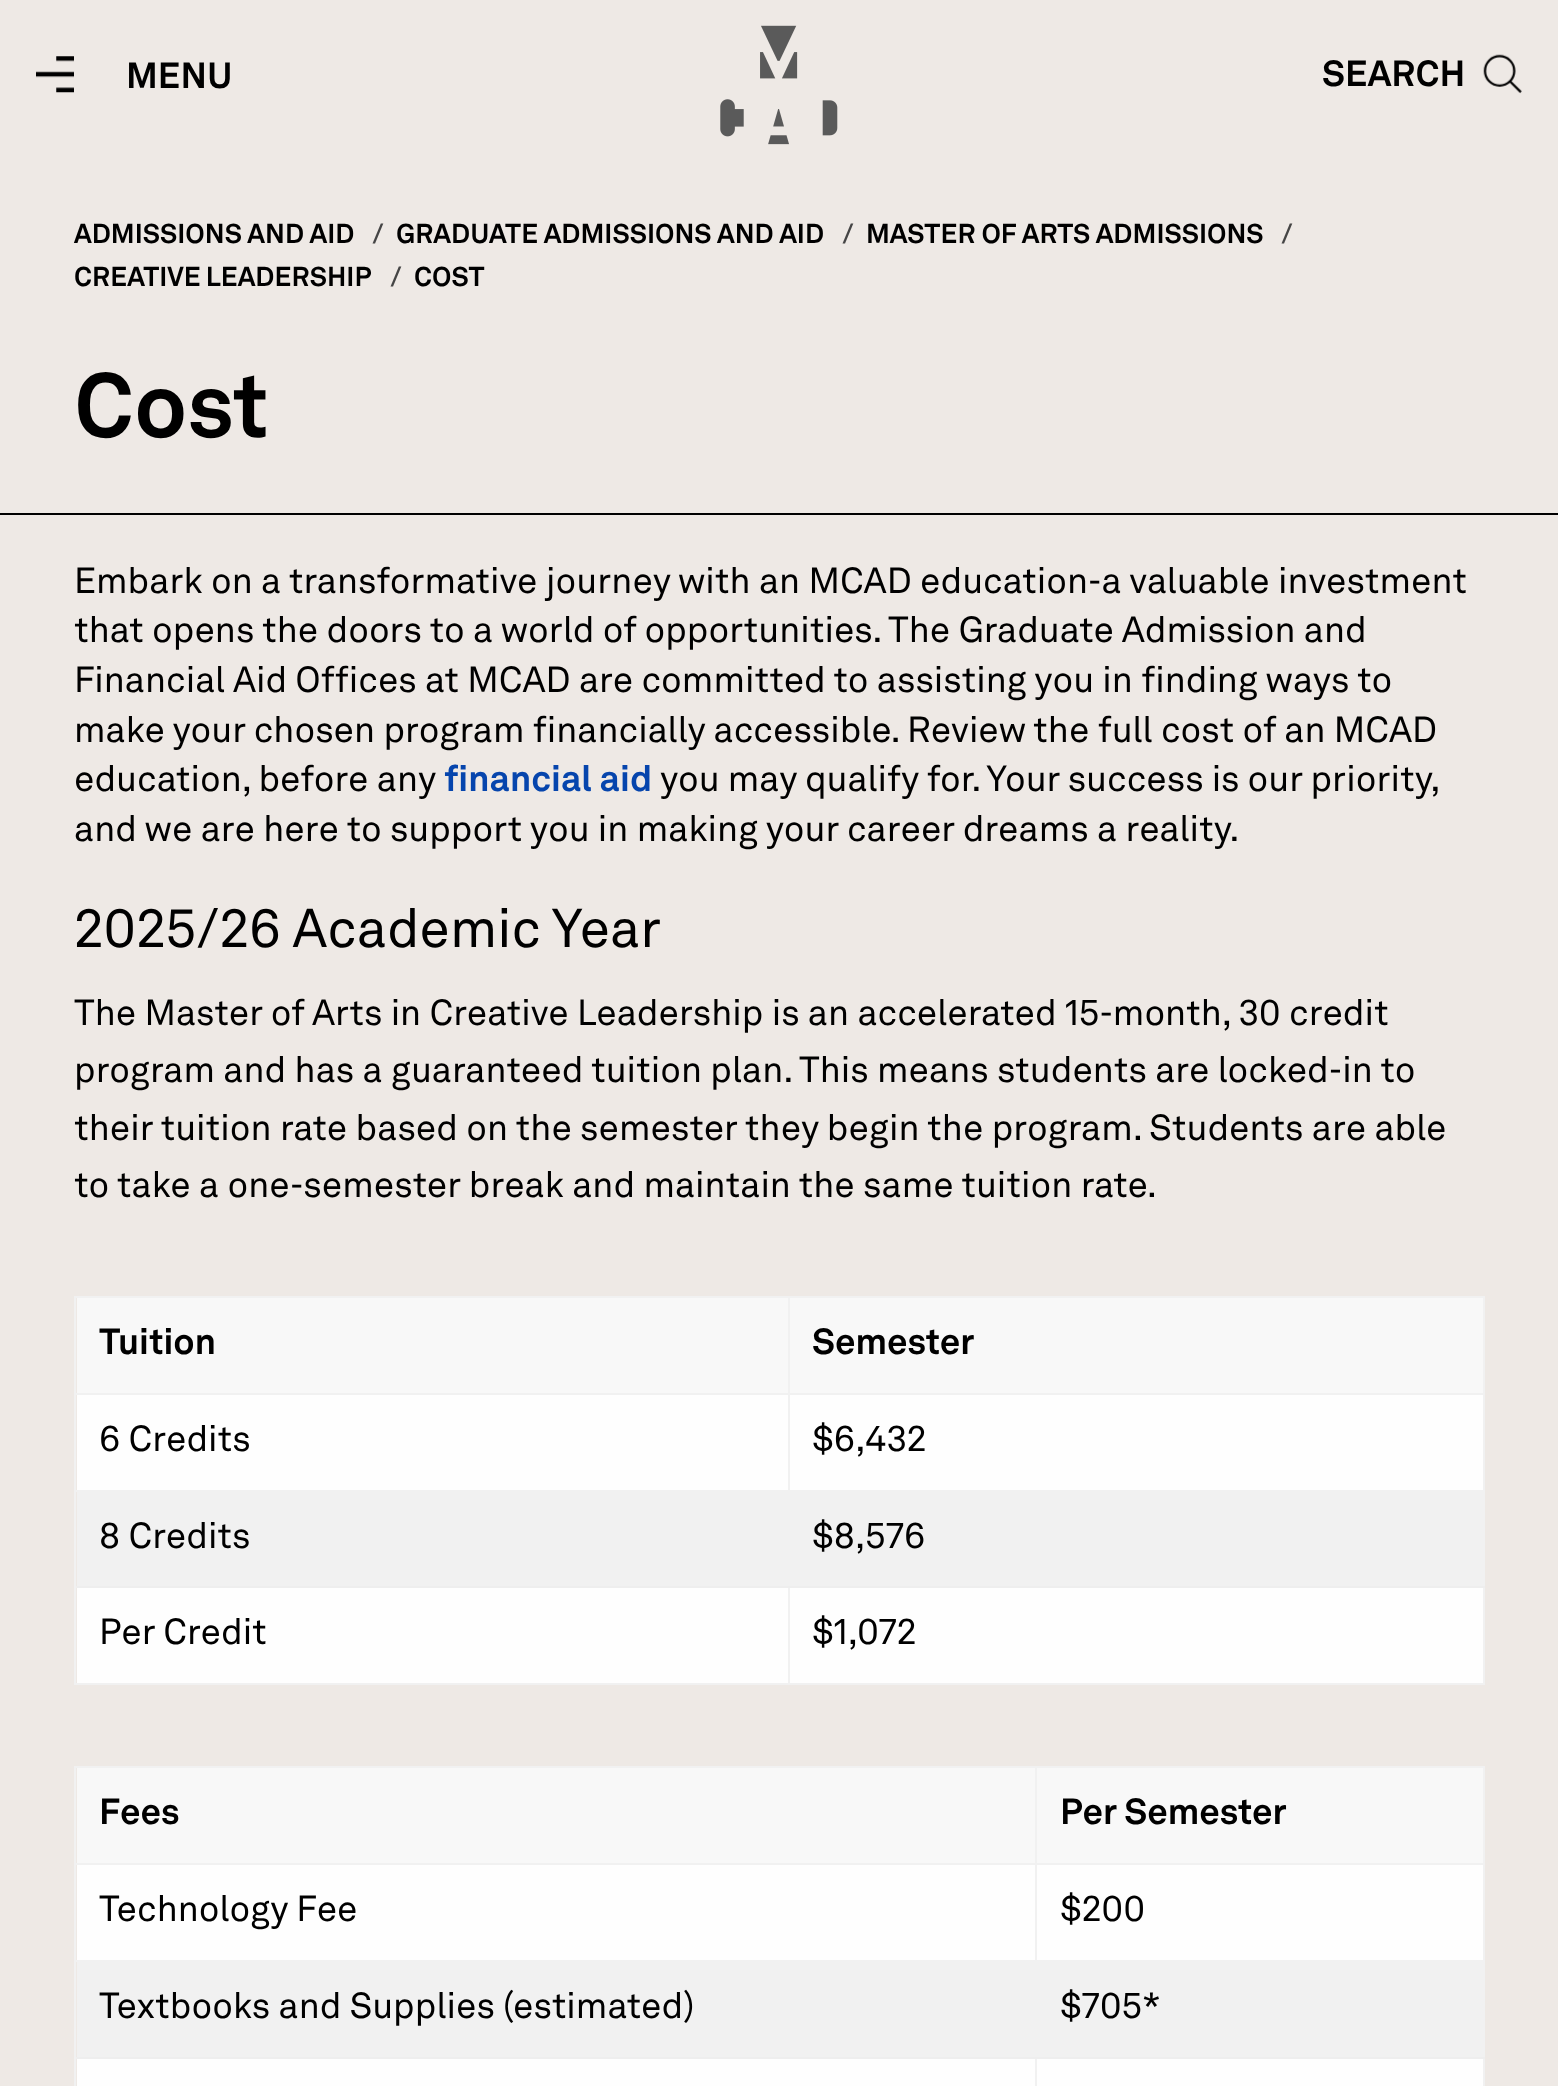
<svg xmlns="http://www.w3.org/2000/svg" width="1558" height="2086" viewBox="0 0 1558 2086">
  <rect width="100%" height="100%" fill="#eee9e5"/>
  <image x="36" y="56" width="38" height="37" href="img1.png"/>
  <text x="126" y="88" font-family="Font" font-size="36" font-weight="bold" fill="#000000">MENU</text>
  <image x="720" y="25" width="118" height="120" href="img2.png"/>
  <text x="1322" y="86" font-family="Font" font-size="36" font-weight="bold" fill="#000000">SEARCH</text>
  <image x="1483" y="54" width="39" height="40" href="img3.png"/>
  <text x="74" y="243" font-family="Font" font-size="27" font-weight="bold" fill="#000000">ADMISSIONS AND AID</text>
  <text x="372" y="243" font-family="Font" font-size="27" font-weight="bold" fill="#454545">/</text>
  <text x="396" y="243" font-family="Font" font-size="27" font-weight="bold" fill="#000000">GRADUATE ADMISSIONS AND AID</text>
  <text x="842" y="243" font-family="Font" font-size="27" font-weight="bold" fill="#454545">/</text>
  <text x="866" y="243" font-family="Font" font-size="27" font-weight="bold" fill="#000000">MASTER OF ARTS ADMISSIONS</text>
  <text x="1281" y="243" font-family="Font" font-size="27" font-weight="bold" fill="#454545">/</text>
  <text x="74" y="286" word-spacing="-1" font-family="Font" font-size="27" font-weight="bold" fill="#000000">CREATIVE LEADERSHIP</text>
  <text x="390" y="286" font-family="Font" font-size="27" font-weight="bold" fill="#454545">/</text>
  <text x="414" y="286" font-family="Font" font-size="27" font-weight="bold" fill="#000000">COST</text>
  <text x="74" y="437" font-family="Font" font-size="90" font-weight="bold" fill="#000000">Cost</text>
  <rect x="0" y="513" width="1558" height="2" fill="#000000"/>
  <text x="74" y="593" font-family="Font" font-size="36" fill="#000000">Embark on a transformative journey with an MCAD education-a valuable investment</text>
  <text x="74" y="642" font-family="Font" font-size="36" fill="#000000">that opens the doors to a world of opportunities. The Graduate Admission and</text>
  <text x="74" y="692" font-family="Font" font-size="36" fill="#000000">Financial Aid Offices at MCAD are committed to assisting you in finding ways to</text>
  <text x="74" y="742" font-family="Font" font-size="36" fill="#000000">make your chosen program financially accessible. Review the full cost of an MCAD</text>
  <text x="74" y="791" font-family="Font" font-size="36" fill="#000000">education, before any</text>
  <text x="444" y="791" font-family="Font" font-size="36" font-weight="bold" fill="#0645ad">financial aid</text>
  <text x="660" y="791" word-spacing="-0.25" font-family="Font" font-size="36" fill="#000000">you may qualify for. Your success is our priority,</text>
  <text x="74" y="841" font-family="Font" font-size="36" fill="#000000">and we are here to support you in making your career dreams a reality.</text>
  <text x="74" y="947" font-family="Font" font-size="54" fill="#000000">2025/26 Academic Year</text>
  <text x="74" y="1025" font-family="Font" font-size="36" fill="#000000">The Master of Arts in Creative Leadership is an accelerated 15-month, 30 credit</text>
  <text x="74" y="1082" font-family="Font" font-size="36" fill="#000000">program and has a guaranteed tuition plan. This means students are locked-in to</text>
  <text x="74" y="1140" font-family="Font" font-size="36" fill="#000000">their tuition rate based on the semester they begin the program. Students are able</text>
  <text x="74" y="1197" font-family="Font" font-size="36" fill="#000000">to take a one-semester break and maintain the same tuition rate.</text>
  <rect x="77" y="1298" width="1406" height="95" fill="#f8f8f8"/>
  <rect x="74" y="1296" width="1411" height="2" fill="#f1f1f1"/>
  <rect x="74" y="1393" width="1411" height="2" fill="#f1f1f1"/>
  <rect x="1483" y="1393" width="2" height="292" fill="#f1f1f1"/>
  <rect x="1483" y="1296" width="2" height="99" fill="#f1f1f1"/>
  <rect x="74" y="1683" width="1411" height="2" fill="#f1f1f1"/>
  <rect x="74" y="1393" width="2" height="292" fill="#f1f1f1"/>
  <rect x="74" y="1296" width="2" height="99" fill="#f1f1f1"/>
  <text x="99" y="1354" font-family="Font" font-size="36" font-weight="bold" fill="#000000">Tuition</text>
  <text x="812" y="1354" font-family="Font" font-size="36" font-weight="bold" fill="#000000">Semester</text>
  <rect x="77" y="1395" width="1406" height="288" fill="#fefefe"/>
  <text x="99" y="1451" font-family="Font" font-size="36" fill="#000000">6 Credits</text>
  <rect x="77" y="1490" width="1406" height="96" fill="#f1f1f1"/>
  <rect x="788" y="1296" width="2" height="196" fill="#f1f1f1"/>
  <text x="812" y="1451" font-family="Font" font-size="36" fill="#000000">$6,432</text>
  <rect x="74" y="1490" width="3" height="2" fill="#f1f1f1"/>
  <rect x="788" y="1586" width="2" height="99" fill="#f1f1f1"/>
  <rect x="788" y="1586" width="697" height="2" fill="#eeeeee"/>
  <rect x="788" y="1586" width="2" height="3" fill="#f1f1f1"/>
  <rect x="74" y="1586" width="716" height="2" fill="#eeeeee"/>
  <rect x="74" y="1586" width="2" height="3" fill="#f1f1f1"/>
  <text x="99" y="1548" font-family="Font" font-size="36" fill="#000000">8 Credits</text>
  <text x="812" y="1548" font-family="Font" font-size="36" fill="#000000">$8,576</text>
  <text x="99" y="1644" font-family="Font" font-size="36" fill="#000000">Per Credit</text>
  <text x="812" y="1644" font-family="Font" font-size="36" fill="#000000">$1,072</text>
  <rect x="77" y="1768" width="1406" height="95" fill="#f8f8f8"/>
  <rect x="74" y="1766" width="1411" height="2" fill="#f1f1f1"/>
  <rect x="74" y="1863" width="1411" height="2" fill="#f1f1f1"/>
  <rect x="1483" y="1863" width="2" height="223" fill="#f1f1f1"/>
  <rect x="1483" y="1766" width="2" height="99" fill="#f1f1f1"/>
  <rect x="74" y="1863" width="2" height="223" fill="#f1f1f1"/>
  <rect x="74" y="1766" width="2" height="99" fill="#f1f1f1"/>
  <text x="99" y="1824" font-family="Font" font-size="36" font-weight="bold" fill="#000000">Fees</text>
  <text x="1060" y="1824" font-family="Font" font-size="36" font-weight="bold" fill="#000000">Per Semester</text>
  <rect x="77" y="1865" width="1406" height="221" fill="#fefefe"/>
  <text x="99" y="1921" font-family="Font" font-size="36" fill="#000000">Technology Fee</text>
  <rect x="77" y="1960" width="1406" height="97" fill="#f1f1f1"/>
  <rect x="1035" y="1766" width="2" height="196" fill="#f1f1f1"/>
  <text x="1060" y="1921" font-family="Font" font-size="36" fill="#000000">$200</text>
  <rect x="74" y="1960" width="3" height="2" fill="#f1f1f1"/>
  <rect x="1035" y="2057" width="2" height="29" fill="#f1f1f1"/>
  <rect x="1035" y="2057" width="450" height="2" fill="#eeeeee"/>
  <rect x="1035" y="2057" width="2" height="2" fill="#f1f1f1"/>
  <rect x="74" y="2057" width="963" height="2" fill="#eeeeee"/>
  <rect x="74" y="2057" width="2" height="2" fill="#f1f1f1"/>
  <text x="99" y="2018" font-family="Font" font-size="36" fill="#000000">Textbooks and Supplies (estimated)</text>
  <text x="1060" y="2018" font-family="Font" font-size="36" fill="#000000">$705*</text>
</svg>
